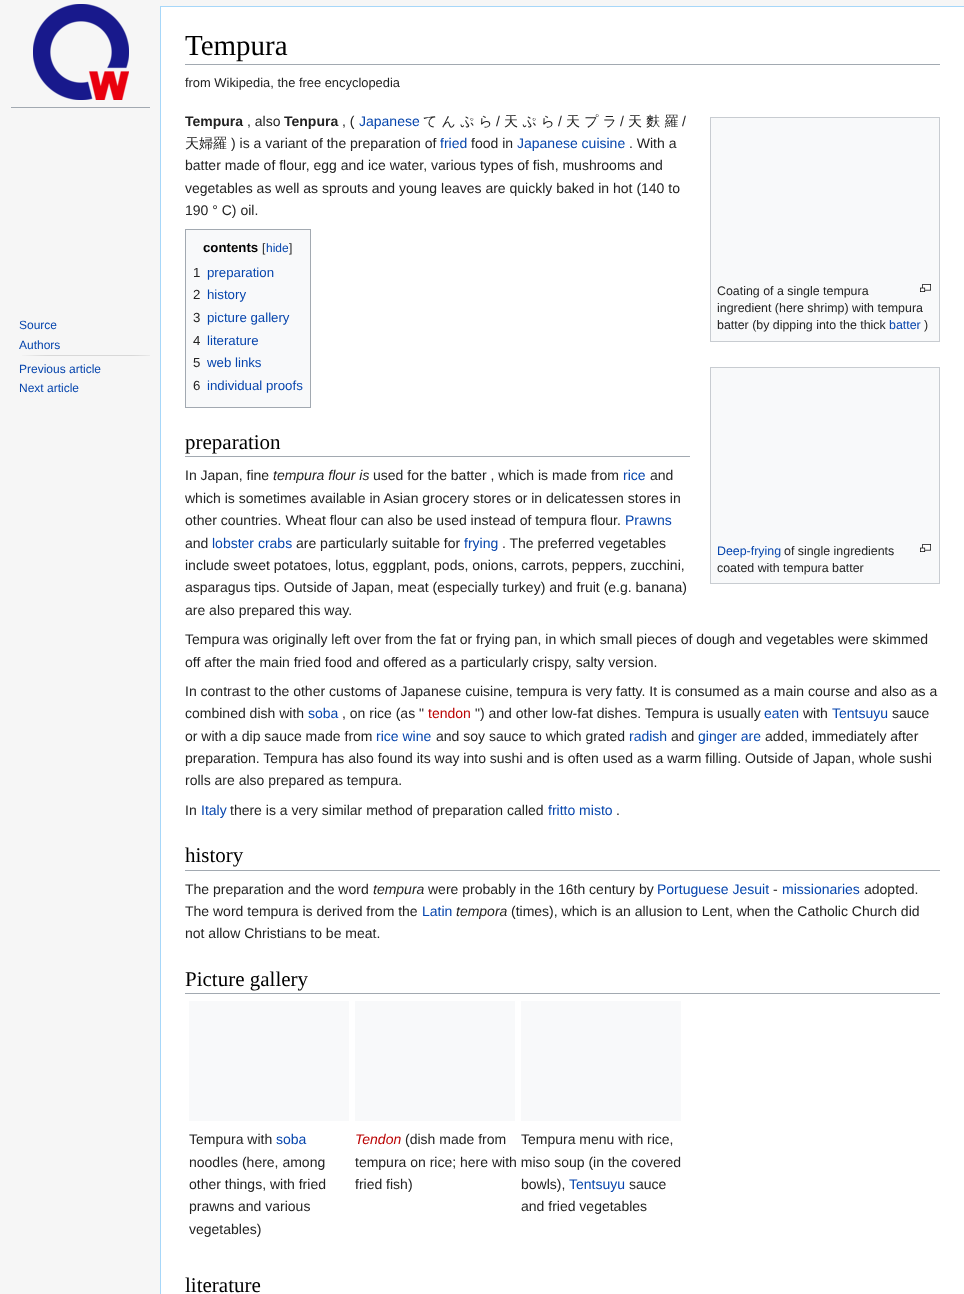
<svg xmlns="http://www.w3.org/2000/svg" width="964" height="1294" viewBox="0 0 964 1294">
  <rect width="100%" height="100%" fill="#f6f6f6"/>
  <image x="33" y="4" width="96" height="96" href="img1.png"/>
  <rect x="11" y="107" width="139" height="1" fill="#a2a9b1"/>
  <text x="19" y="329" font-family="Liberation Sans" font-size="12" fill="#0645ad">Source</text>
  <text x="19" y="349" font-family="Liberation Sans" font-size="12" fill="#0645ad">Authors</text>
  <image x="22" y="355" width="128" height="1" href="img2.png"/>
  <text x="19" y="373" font-family="Liberation Sans" font-size="12" fill="#0645ad">Previous article</text>
  <text x="19" y="392" font-family="Liberation Sans" font-size="12" fill="#0645ad">Next article</text>
  <rect x="161" y="7" width="803" height="1287" fill="#ffffff"/>
  <rect x="160" y="6" width="804" height="1" fill="#a7d7f9"/>
  <rect x="160" y="6" width="1" height="1288" fill="#a7d7f9"/>
  <rect x="185" y="64" width="755" height="1" fill="#a2a9b1"/>
  <text x="185" y="55" font-family="Liberation Serif" font-size="29" fill="#000000">Tempura</text>
  <text x="185" y="87" font-family="Liberation Sans" font-size="12.9" fill="#222222">from Wikipedia, the free encyclopedia</text>
  <text x="185" y="126" font-family="Liberation Sans" font-size="14" font-weight="bold" fill="#222222">Tempura</text>
  <text x="247" y="126" font-family="Liberation Sans" font-size="14" fill="#222222">, also</text>
  <text x="284" y="126" font-family="Liberation Sans" font-size="14" font-weight="bold" fill="#222222">Tenpura</text>
  <text x="342" y="126" font-family="Liberation Sans" font-size="14" fill="#222222">, (</text>
  <text x="359" y="126" font-family="Liberation Sans" font-size="14" fill="#0645ad">Japanese</text>
  <text x="423" y="126" font-family="WenQuanYi Zen Hei" font-size="14" font-weight="500" fill="#222222">て ん ぷ ら</text>
  <text x="496" y="126" font-family="Liberation Sans" font-size="14" fill="#222222">/</text>
  <text x="504" y="126" font-family="WenQuanYi Zen Hei" font-size="14" font-weight="500" fill="#222222">天 ぷ ら</text>
  <text x="558" y="126" font-family="Liberation Sans" font-size="14" fill="#222222">/</text>
  <text x="566" y="126" font-family="WenQuanYi Zen Hei" font-size="14" font-weight="500" fill="#222222">天 プ ラ</text>
  <text x="620" y="126" font-family="Liberation Sans" font-size="14" fill="#222222">/</text>
  <text x="628" y="126" font-family="WenQuanYi Zen Hei" font-size="14" font-weight="500" fill="#222222">天 麩 羅</text>
  <text x="682" y="126" font-family="Liberation Sans" font-size="14" fill="#222222">/</text>
  <text x="185" y="148" font-family="WenQuanYi Zen Hei" font-size="14" font-weight="500" fill="#222222">天婦羅</text>
  <text x="231" y="148" font-family="Liberation Sans" font-size="14" fill="#222222">) is a variant of the preparation of</text>
  <text x="440" y="148" font-family="Liberation Sans" font-size="14" fill="#0645ad">fried</text>
  <text x="471" y="148" font-family="Liberation Sans" font-size="14" fill="#222222">food in</text>
  <text x="517" y="148" font-family="Liberation Sans" font-size="14" fill="#0645ad">Japanese cuisine</text>
  <text x="629" y="148" font-family="Liberation Sans" font-size="14" fill="#222222">. With a</text>
  <text x="185" y="170" font-family="Liberation Sans" font-size="14" fill="#222222">batter made of flour, egg and ice water, various types of fish, mushrooms and</text>
  <text x="185" y="193" font-family="Liberation Sans" font-size="14" fill="#222222">vegetables as well as sprouts and young leaves are quickly baked in hot (140 to</text>
  <text x="185" y="215" font-family="Liberation Sans" font-size="14" fill="#222222">190 ° C) oil.</text>
  <rect x="185.5" y="229.5" width="125" height="178" fill="#f8f9fa" stroke="#a2a9b1"/>
  <text x="203" y="252" font-family="Liberation Sans" font-size="13.25" font-weight="bold" fill="#000000">contents</text>
  <text x="262" y="252" font-family="Liberation Sans" font-size="12" fill="#222222">[</text>
  <text x="266" y="252" font-family="Liberation Sans" font-size="12" fill="#0645ad">hide</text>
  <text x="289" y="252" font-family="Liberation Sans" font-size="12" fill="#222222">]</text>
  <text x="193" y="277" font-family="Liberation Sans" font-size="13.25" fill="#222222">1</text>
  <text x="207" y="277" font-family="Liberation Sans" font-size="13.25" fill="#0645ad">preparation</text>
  <text x="193" y="299" font-family="Liberation Sans" font-size="13.25" fill="#222222">2</text>
  <text x="207" y="299" font-family="Liberation Sans" font-size="13.25" fill="#0645ad">history</text>
  <text x="193" y="322" font-family="Liberation Sans" font-size="13.25" fill="#222222">3</text>
  <text x="207" y="322" font-family="Liberation Sans" font-size="13.25" fill="#0645ad">picture gallery</text>
  <text x="193" y="345" font-family="Liberation Sans" font-size="13.25" fill="#222222">4</text>
  <text x="207" y="345" font-family="Liberation Sans" font-size="13.25" fill="#0645ad">literature</text>
  <text x="193" y="367" font-family="Liberation Sans" font-size="13.25" fill="#222222">5</text>
  <text x="207" y="367" font-family="Liberation Sans" font-size="13.25" fill="#0645ad">web links</text>
  <text x="193" y="390" font-family="Liberation Sans" font-size="13.25" fill="#222222">6</text>
  <text x="207" y="390" font-family="Liberation Sans" font-size="13.25" fill="#0645ad">individual proofs</text>
  <rect x="185" y="456" width="505" height="1" fill="#a2a9b1"/>
  <text x="185" y="449" font-family="Liberation Serif" font-size="21" fill="#000000">preparation</text>
  <rect x="710.5" y="117.5" width="229" height="224" fill="#f8f9fa" stroke="#c8ccd1"/>
  <text x="717" y="295" font-family="Liberation Sans" font-size="12.4" fill="#222222">Coating of a single tempura</text>
  <image x="920" y="284" width="11" height="8" href="img3.png"/>
  <text x="717" y="312" font-family="Liberation Sans" font-size="12.4" fill="#222222">ingredient (here shrimp) with tempura</text>
  <text x="717" y="329" font-family="Liberation Sans" font-size="12.4" fill="#222222">batter (by dipping into the thick</text>
  <text x="889" y="329" font-family="Liberation Sans" font-size="12.4" fill="#0645ad">batter</text>
  <text x="924" y="329" font-family="Liberation Sans" font-size="12.4" fill="#222222">)</text>
  <text x="185" y="480" font-family="Liberation Sans" font-size="14" fill="#222222">In Japan, fine</text>
  <text x="273" y="480" font-family="Liberation Sans" font-size="14" font-style="italic" fill="#222222">tempura flour is</text>
  <text x="373" y="480" font-family="Liberation Sans" font-size="14" fill="#222222">used for the batter , which is made from</text>
  <text x="623" y="480" font-family="Liberation Sans" font-size="14" fill="#0645ad">rice</text>
  <text x="650" y="480" font-family="Liberation Sans" font-size="14" fill="#222222">and</text>
  <text x="185" y="503" font-family="Liberation Sans" font-size="14" fill="#222222">which is sometimes available in Asian grocery stores or in delicatessen stores in</text>
  <text x="185" y="525" font-family="Liberation Sans" font-size="14" fill="#222222">other countries. Wheat flour can also be used instead of tempura flour.</text>
  <text x="625" y="525" font-family="Liberation Sans" font-size="14" fill="#0645ad">Prawns</text>
  <text x="185" y="548" font-family="Liberation Sans" font-size="14" fill="#222222">and</text>
  <text x="212" y="548" font-family="Liberation Sans" font-size="14" fill="#0645ad">lobster crabs</text>
  <text x="296" y="548" font-family="Liberation Sans" font-size="14" fill="#222222">are particularly suitable for</text>
  <text x="464" y="548" font-family="Liberation Sans" font-size="14" fill="#0645ad">frying</text>
  <text x="502" y="548" font-family="Liberation Sans" font-size="14" fill="#222222">. The preferred vegetables</text>
  <text x="185" y="570" font-family="Liberation Sans" font-size="14" fill="#222222">include sweet potatoes, lotus, eggplant, pods, onions, carrots, peppers, zucchini,</text>
  <text x="185" y="592" font-family="Liberation Sans" font-size="14" fill="#222222">asparagus tips. Outside of Japan, meat (especially turkey) and fruit (e.g. banana)</text>
  <text x="185" y="615" font-family="Liberation Sans" font-size="14" fill="#222222">are also prepared this way.</text>
  <rect x="710.5" y="367.5" width="229" height="216" fill="#f8f9fa" stroke="#c8ccd1"/>
  <text x="717" y="555" font-family="Liberation Sans" font-size="12.4" fill="#0645ad">Deep-frying</text>
  <text x="784" y="555" font-family="Liberation Sans" font-size="12.4" fill="#222222">of single ingredients</text>
  <image x="920" y="544" width="11" height="8" href="img3.png"/>
  <text x="717" y="572" font-family="Liberation Sans" font-size="12.4" fill="#222222">coated with tempura batter</text>
  <text x="185" y="644" font-family="Liberation Sans" font-size="14" fill="#222222">Tempura was originally left over from the fat or frying pan, in which small pieces of dough and vegetables were skimmed</text>
  <text x="185" y="667" font-family="Liberation Sans" font-size="14" fill="#222222">off after the main fried food and offered as a particularly crispy, salty version.</text>
  <text x="185" y="696" font-family="Liberation Sans" font-size="14" fill="#222222">In contrast to the other customs of Japanese cuisine, tempura is very fatty. It is consumed as a main course and also as a</text>
  <text x="185" y="718" font-family="Liberation Sans" font-size="14" fill="#222222">combined dish with</text>
  <text x="308" y="718" font-family="Liberation Sans" font-size="14" fill="#0645ad">soba</text>
  <text x="342" y="718" font-family="Liberation Sans" font-size="14" fill="#222222">, on rice (as "</text>
  <text x="428" y="718" font-family="Liberation Sans" font-size="14" fill="#ba0000">tendon</text>
  <text x="475" y="718" font-family="Liberation Sans" font-size="14" fill="#222222">") and other low-fat dishes. Tempura is usually</text>
  <text x="764" y="718" font-family="Liberation Sans" font-size="14" fill="#0645ad">eaten</text>
  <text x="803" y="718" font-family="Liberation Sans" font-size="14" fill="#222222">with</text>
  <text x="832" y="718" font-family="Liberation Sans" font-size="14" fill="#0645ad">Tentsuyu</text>
  <text x="892" y="718" font-family="Liberation Sans" font-size="14" fill="#222222">sauce</text>
  <text x="185" y="741" font-family="Liberation Sans" font-size="14" fill="#222222">or with a dip sauce made from</text>
  <text x="376" y="741" font-family="Liberation Sans" font-size="14" fill="#0645ad">rice wine</text>
  <text x="436" y="741" font-family="Liberation Sans" font-size="14" fill="#222222">and soy sauce to which grated</text>
  <text x="629" y="741" font-family="Liberation Sans" font-size="14" fill="#0645ad">radish</text>
  <text x="671" y="741" font-family="Liberation Sans" font-size="14" fill="#222222">and</text>
  <text x="698" y="741" font-family="Liberation Sans" font-size="14" fill="#0645ad">ginger are</text>
  <text x="765" y="741" font-family="Liberation Sans" font-size="14" fill="#222222">added, immediately after</text>
  <text x="185" y="763" font-family="Liberation Sans" font-size="14" fill="#222222">preparation. Tempura has also found its way into sushi and is often used as a warm filling. Outside of Japan, whole sushi</text>
  <text x="185" y="785" font-family="Liberation Sans" font-size="14" fill="#222222">rolls are also prepared as tempura.</text>
  <text x="185" y="815" font-family="Liberation Sans" font-size="14" fill="#222222">In</text>
  <text x="201" y="815" font-family="Liberation Sans" font-size="14" fill="#0645ad">Italy</text>
  <text x="230" y="815" font-family="Liberation Sans" font-size="14" fill="#222222">there is a very similar method of preparation called</text>
  <text x="548" y="815" font-family="Liberation Sans" font-size="14" fill="#0645ad">fritto misto</text>
  <text x="616" y="815" font-family="Liberation Sans" font-size="14" fill="#222222">.</text>
  <rect x="185" y="870" width="755" height="1" fill="#a2a9b1"/>
  <text x="185" y="862" font-family="Liberation Serif" font-size="21" fill="#000000">history</text>
  <text x="185" y="894" font-family="Liberation Sans" font-size="14" fill="#222222">The preparation and the word</text>
  <text x="373" y="894" font-family="Liberation Sans" font-size="14" font-style="italic" fill="#222222">tempura</text>
  <text x="428" y="894" font-family="Liberation Sans" font-size="14" fill="#222222">were probably in the 16th century by</text>
  <text x="657" y="894" font-family="Liberation Sans" font-size="14" fill="#0645ad">Portuguese Jesuit</text>
  <text x="773" y="894" font-family="Liberation Sans" font-size="14" fill="#222222">-</text>
  <text x="782" y="894" font-family="Liberation Sans" font-size="14" fill="#0645ad">missionaries</text>
  <text x="864" y="894" font-family="Liberation Sans" font-size="14" fill="#222222">adopted.</text>
  <text x="185" y="916" font-family="Liberation Sans" font-size="14" fill="#222222">The word tempura is derived from the</text>
  <text x="422" y="916" font-family="Liberation Sans" font-size="14" fill="#0645ad">Latin</text>
  <text x="456" y="916" font-family="Liberation Sans" font-size="14" font-style="italic" fill="#222222">tempora</text>
  <text x="511" y="916" font-family="Liberation Sans" font-size="14" fill="#222222">(times), which is an allusion to Lent, when the Catholic Church did</text>
  <text x="185" y="938" font-family="Liberation Sans" font-size="14" fill="#222222">not allow Christians to be meat.</text>
  <rect x="185" y="993" width="755" height="1" fill="#a2a9b1"/>
  <text x="185" y="986" font-family="Liberation Serif" font-size="21" fill="#000000">Picture gallery</text>
  <rect x="189" y="1001" width="160" height="120" fill="#f8f9fa"/>
  <text x="189" y="1144" font-family="Liberation Sans" font-size="14" fill="#222222">Tempura with</text>
  <text x="276" y="1144" font-family="Liberation Sans" font-size="14" fill="#0645ad">soba</text>
  <text x="189" y="1167" font-family="Liberation Sans" font-size="14" fill="#222222">noodles (here, among</text>
  <text x="189" y="1189" font-family="Liberation Sans" font-size="14" fill="#222222">other things, with fried</text>
  <text x="189" y="1211" font-family="Liberation Sans" font-size="14" fill="#222222">prawns and various</text>
  <text x="189" y="1234" font-family="Liberation Sans" font-size="14" fill="#222222">vegetables)</text>
  <rect x="355" y="1001" width="160" height="120" fill="#f8f9fa"/>
  <text x="355" y="1144" font-family="Liberation Sans" font-size="14" font-style="italic" fill="#ba0000">Tendon</text>
  <text x="405" y="1144" font-family="Liberation Sans" font-size="14" fill="#222222">(dish made from</text>
  <text x="355" y="1167" font-family="Liberation Sans" font-size="14" fill="#222222">tempura on rice; here with miso soup (in the covered</text>
  <text x="355" y="1189" font-family="Liberation Sans" font-size="14" fill="#222222">fried fish)</text>
  <rect x="521" y="1001" width="160" height="120" fill="#f8f9fa"/>
  <text x="521" y="1144" font-family="Liberation Sans" font-size="14" fill="#222222">Tempura menu with rice,</text>
  <text x="521" y="1189" font-family="Liberation Sans" font-size="14" fill="#222222">bowls),</text>
  <text x="569" y="1189" font-family="Liberation Sans" font-size="14" fill="#0645ad">Tentsuyu</text>
  <text x="629" y="1189" font-family="Liberation Sans" font-size="14" fill="#222222">sauce</text>
  <text x="521" y="1211" font-family="Liberation Sans" font-size="14" fill="#222222">and fried vegetables</text>
  <text x="185" y="1292" font-family="Liberation Serif" font-size="21" fill="#000000">literature</text>
</svg>
